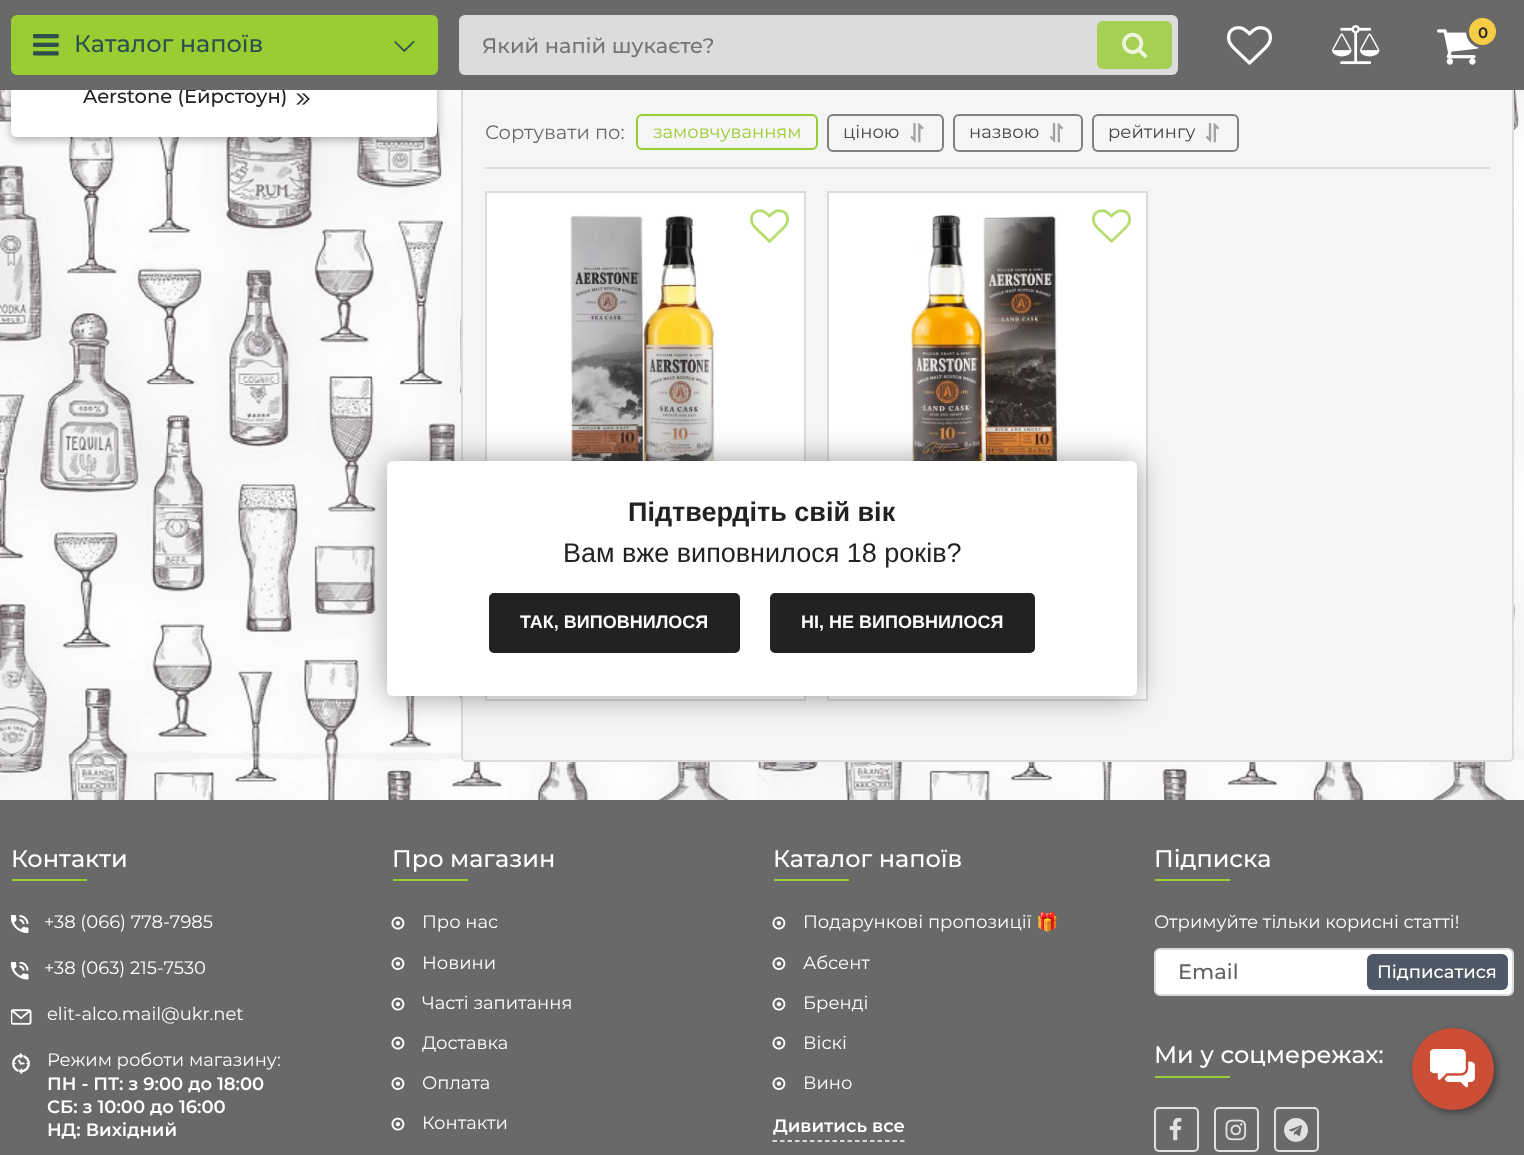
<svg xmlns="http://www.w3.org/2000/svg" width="1524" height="1155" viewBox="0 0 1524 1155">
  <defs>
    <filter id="blur1" x="-50%" y="-200%" width="200%" height="500%"><feGaussianBlur stdDeviation="4"/></filter>
    <filter id="blur2" x="-50%" y="-200%" width="200%" height="500%"><feGaussianBlur stdDeviation="15"/></filter>
    <filter id="blur3" x="-50%" y="-200%" width="200%" height="500%"><feGaussianBlur stdDeviation="4.5"/></filter>
  </defs>
  <rect width="100%" height="100%" fill="#ffffff"/>
  <image x="0" y="90" width="1524" height="710" href="img1.png"/>
  <rect x="11" y="6" width="426" height="134" rx="5" fill="#000000" fill-opacity="0.3" filter="url(#blur1)"/>
  <rect x="11" y="3" width="426" height="134" rx="5" fill="#ffffff"/>
  <text x="83" y="103" font-family="Montserrat" font-size="19.5" font-weight="500" fill="#222222">Aerstone (Ейрстоун)</text>
  <rect x="462" y="4" width="1051" height="757" rx="4" fill="#f5f5f5" stroke="#dbdbdb" stroke-width="2"/>
  <rect x="0" y="0" width="1524" height="90" fill="#696969"/>
  <rect x="11" y="15" width="427" height="60" rx="6" fill="#99cd32"/>
  <image x="33" y="34" width="26" height="22" href="img2.png"/>
  <text x="74" y="52" font-family="Montserrat" font-size="24" font-weight="500" fill="#2f4f4f">Каталог напоїв</text>
  <image x="394" y="40" width="21" height="12" href="img3.png"/>
  <rect x="459" y="15" width="719" height="60" rx="6" fill="#dcdcdc"/>
  <text x="482" y="53" font-family="Montserrat" font-size="21" font-weight="500" fill="#757575">Який напій шукаєте?</text>
  <rect x="1097" y="21" width="75" height="48" rx="6" fill="#a6d054"/>
  <image x="1122" y="32" width="25" height="26" href="img4.png"/>
  <image x="1227" y="26" width="45" height="39" href="img5.png"/>
  <image x="1332" y="25" width="48" height="40" href="img6.png"/>
  <image x="1437" y="29" width="42" height="36" href="img7.png"/>
  <circle cx="1482.5" cy="31.5" r="15" fill="#f5cc43" stroke="#696969" stroke-width="3"/>
  <text x="1478" y="38" font-family="Montserrat" font-size="15" font-weight="600" fill="#222222">0</text>
  <image x="296" y="93" width="14" height="12" href="img8.png"/>
  <rect x="485" y="167" width="1005" height="2" fill="#dbdbdb"/>
  <text x="485" y="139" font-family="Montserrat" font-size="19.5" fill="#696868">Сортувати по:</text>
  <rect x="637" y="115" width="180" height="34" rx="5" fill="none" stroke="#99cd32" stroke-width="2"/>
  <text x="653" y="138" font-family="Montserrat" font-size="18" fill="#99cd32">замовчуванням</text>
  <rect x="828" y="115" width="115" height="36" rx="5" fill="none" stroke="#7f7f7f" stroke-width="2"/>
  <text x="843" y="138" font-family="Montserrat" font-size="18" fill="#454545">ціною</text>
  <image x="910" y="123" width="14" height="20" href="img9.png"/>
  <rect x="954" y="115" width="128" height="36" rx="5" fill="none" stroke="#7f7f7f" stroke-width="2"/>
  <text x="969" y="138" font-family="Montserrat" font-size="18" fill="#454545">назвою</text>
  <image x="1049" y="123" width="15" height="20" href="img10.png"/>
  <rect x="1093" y="115" width="145" height="36" rx="5" fill="none" stroke="#7f7f7f" stroke-width="2"/>
  <text x="1108" y="138" font-family="Montserrat" font-size="18" fill="#454545">рейтингу</text>
  <image x="1205" y="123" width="15" height="20" href="img10.png"/>
  <rect x="486" y="192" width="319" height="508" fill="#ffffff" stroke="#dbdbdb" stroke-width="2"/>
  <image x="570" y="215" width="146" height="246" href="img11.png"/>
  <image x="750" y="209" width="39" height="34" href="img12.png"/>
  <rect x="828" y="192" width="319" height="508" fill="#ffffff" stroke="#dbdbdb" stroke-width="2"/>
  <image x="910" y="214" width="149" height="247" href="img13.png"/>
  <image x="1092" y="209" width="39" height="34" href="img12.png"/>
  <rect x="387" y="461" width="750" height="235" rx="6" fill="#000000" fill-opacity="0.4" filter="url(#blur2)"/>
  <rect x="387" y="461" width="750" height="235" rx="6" fill="#ffffff"/>
  <text x="628" y="521" font-family="Liberation Sans" font-size="27" font-weight="bold" fill="#222222">Підтвердіть свій вік</text>
  <text x="563" y="562" font-family="Liberation Sans" font-size="27" fill="#222222">Вам вже виповнилося 18 років?</text>
  <rect x="490" y="594" width="249" height="58" rx="4" fill="#222222" stroke="#222222" stroke-width="2"/>
  <text x="520" y="628" font-family="Liberation Sans" font-size="18" font-weight="bold" fill="#ffffff">ТАК, ВИПОВНИЛОСЯ</text>
  <rect x="771" y="594" width="263" height="58" rx="4" fill="#222222" stroke="#222222" stroke-width="2"/>
  <text x="801" y="628" font-family="Liberation Sans" font-size="18" font-weight="bold" fill="#ffffff">НІ, НЕ ВИПОВНИЛОСЯ</text>
  <rect x="0" y="800" width="1524" height="355" fill="#696969"/>
  <text x="11" y="867" font-family="Montserrat" font-size="24" font-weight="500" fill="#ffffff">Контакти</text>
  <rect x="12" y="879" width="75" height="2" fill="#99cd32"/>
  <image x="11" y="915" width="18" height="18" href="img14.png"/>
  <text x="44" y="928" font-family="Montserrat" font-size="18" fill="#ffffff">+38 (066) 778-7985</text>
  <image x="11" y="962" width="18" height="18" href="img15.png"/>
  <text x="44" y="974" font-family="Montserrat" font-size="18" fill="#ffffff">+38 (063) 215-7530</text>
  <image x="11" y="1009" width="21" height="16" href="img16.png"/>
  <text x="47" y="1020" font-family="Montserrat" font-size="18" fill="#ffffff">elit-alco.mail@ukr.net</text>
  <image x="12" y="1053" width="18" height="21" href="img17.png"/>
  <text x="47" y="1066" font-family="Montserrat" font-size="18" fill="#ffffff">Режим роботи магазину:</text>
  <text x="47" y="1090" font-family="Montserrat" font-size="18" font-weight="600" fill="#ffffff">ПН - ПТ: з 9:00 до 18:00</text>
  <text x="47" y="1113" font-family="Montserrat" font-size="18" font-weight="600" fill="#ffffff">СБ: з 10:00 до 16:00</text>
  <text x="47" y="1136" font-family="Montserrat" font-size="18" font-weight="600" fill="#ffffff">НД: Вихідний</text>
  <text x="392" y="867" font-family="Montserrat" font-size="24" font-weight="500" fill="#ffffff">Про магазин</text>
  <rect x="393" y="879" width="75" height="2" fill="#99cd32"/>
  <image x="391" y="916" width="14" height="14" href="img18.png"/>
  <text x="422" y="928" font-family="Montserrat" font-size="18" fill="#ffffff">Про нас</text>
  <image x="391" y="957" width="14" height="13" href="img19.png"/>
  <text x="422" y="969" font-family="Montserrat" font-size="18" fill="#ffffff">Новини</text>
  <image x="391" y="997" width="14" height="14" href="img18.png"/>
  <text x="422" y="1009" font-family="Montserrat" font-size="18" fill="#ffffff">Часті запитання</text>
  <image x="391" y="1036" width="14" height="14" href="img18.png"/>
  <text x="422" y="1049" font-family="Montserrat" font-size="18" fill="#ffffff">Доставка</text>
  <image x="391" y="1077" width="14" height="13" href="img19.png"/>
  <text x="422" y="1089" font-family="Montserrat" font-size="18" fill="#ffffff">Оплата</text>
  <image x="391" y="1117" width="14" height="14" href="img18.png"/>
  <text x="422" y="1129" font-family="Montserrat" font-size="18" fill="#ffffff">Контакти</text>
  <text x="773" y="867" font-family="Montserrat" font-size="24" font-weight="500" fill="#ffffff">Каталог напоїв</text>
  <rect x="774" y="879" width="75" height="2" fill="#99cd32"/>
  <image x="772" y="916" width="14" height="14" href="img18.png"/>
  <text x="803" y="928" font-family="Montserrat" font-size="18" fill="#ffffff">Подарункові пропозиції</text>
  <text x="1036" y="928" font-family="Noto Color Emoji" font-size="18" fill="#ffffff">🎁</text>
  <image x="772" y="957" width="14" height="13" href="img19.png"/>
  <text x="803" y="969" font-family="Montserrat" font-size="18" fill="#ffffff">Абсент</text>
  <image x="772" y="997" width="14" height="14" href="img18.png"/>
  <text x="803" y="1009" font-family="Montserrat" font-size="18" fill="#ffffff">Бренді</text>
  <image x="772" y="1036" width="14" height="14" href="img18.png"/>
  <text x="803" y="1049" font-family="Montserrat" font-size="18" fill="#ffffff">Віскі</text>
  <image x="772" y="1077" width="14" height="13" href="img19.png"/>
  <text x="803" y="1089" font-family="Montserrat" font-size="18" fill="#ffffff">Вино</text>
  <path d="M772.5 1141H904.5" fill="none" stroke="#ffffff" stroke-width="1.5" stroke-dasharray="4.5 3"/>
  <text x="773" y="1132" font-family="Montserrat" font-size="18" font-weight="600" fill="#ffffff">Дивитись все</text>
  <text x="1154" y="867" font-family="Montserrat" font-size="24" font-weight="500" fill="#ffffff">Підписка</text>
  <rect x="1155" y="879" width="75" height="2" fill="#99cd32"/>
  <text x="1154" y="928" font-family="Montserrat" font-size="18" fill="#ffffff">Отримуйте тільки корисні статті!</text>
  <rect x="1155" y="949" width="358" height="46" rx="5" fill="#ffffff" stroke="#dbdbdb" stroke-width="2"/>
  <text x="1178" y="979" font-family="Montserrat" font-size="21" font-weight="500" fill="#626262">Email</text>
  <rect x="1367" y="954" width="141" height="36" rx="6" fill="#4f5965"/>
  <text x="1377" y="978" font-family="Montserrat" font-size="18" font-weight="500" fill="#ffffff">Підписатися</text>
  <text x="1154" y="1063" font-family="Montserrat" font-size="24" font-weight="500" fill="#ffffff">Ми у соцмережах:</text>
  <rect x="1155" y="1076" width="75" height="2" fill="#99cd32"/>
  <rect x="1155" y="1108" width="43" height="43" rx="4" fill="none" stroke="#e1e1e1" stroke-width="2"/>
  <image x="1169" y="1117" width="13" height="24" href="img20.png"/>
  <rect x="1215" y="1108" width="43" height="43" rx="4" fill="none" stroke="#e1e1e1" stroke-width="2"/>
  <image x="1225" y="1119" width="22" height="22" href="img21.png"/>
  <rect x="1275" y="1108" width="43" height="43" rx="4" fill="none" stroke="#e1e1e1" stroke-width="2"/>
  <image x="1284" y="1118" width="24" height="24" href="img22.png"/>
  <rect x="1415" y="1031" width="82" height="82" rx="41" fill="#000000" fill-opacity="0.4" filter="url(#blur3)"/>
  <circle cx="1453" cy="1069" r="41" fill="#cd4e37"/>
  <image x="1430" y="1049" width="45" height="39" href="img23.png"/>
</svg>
